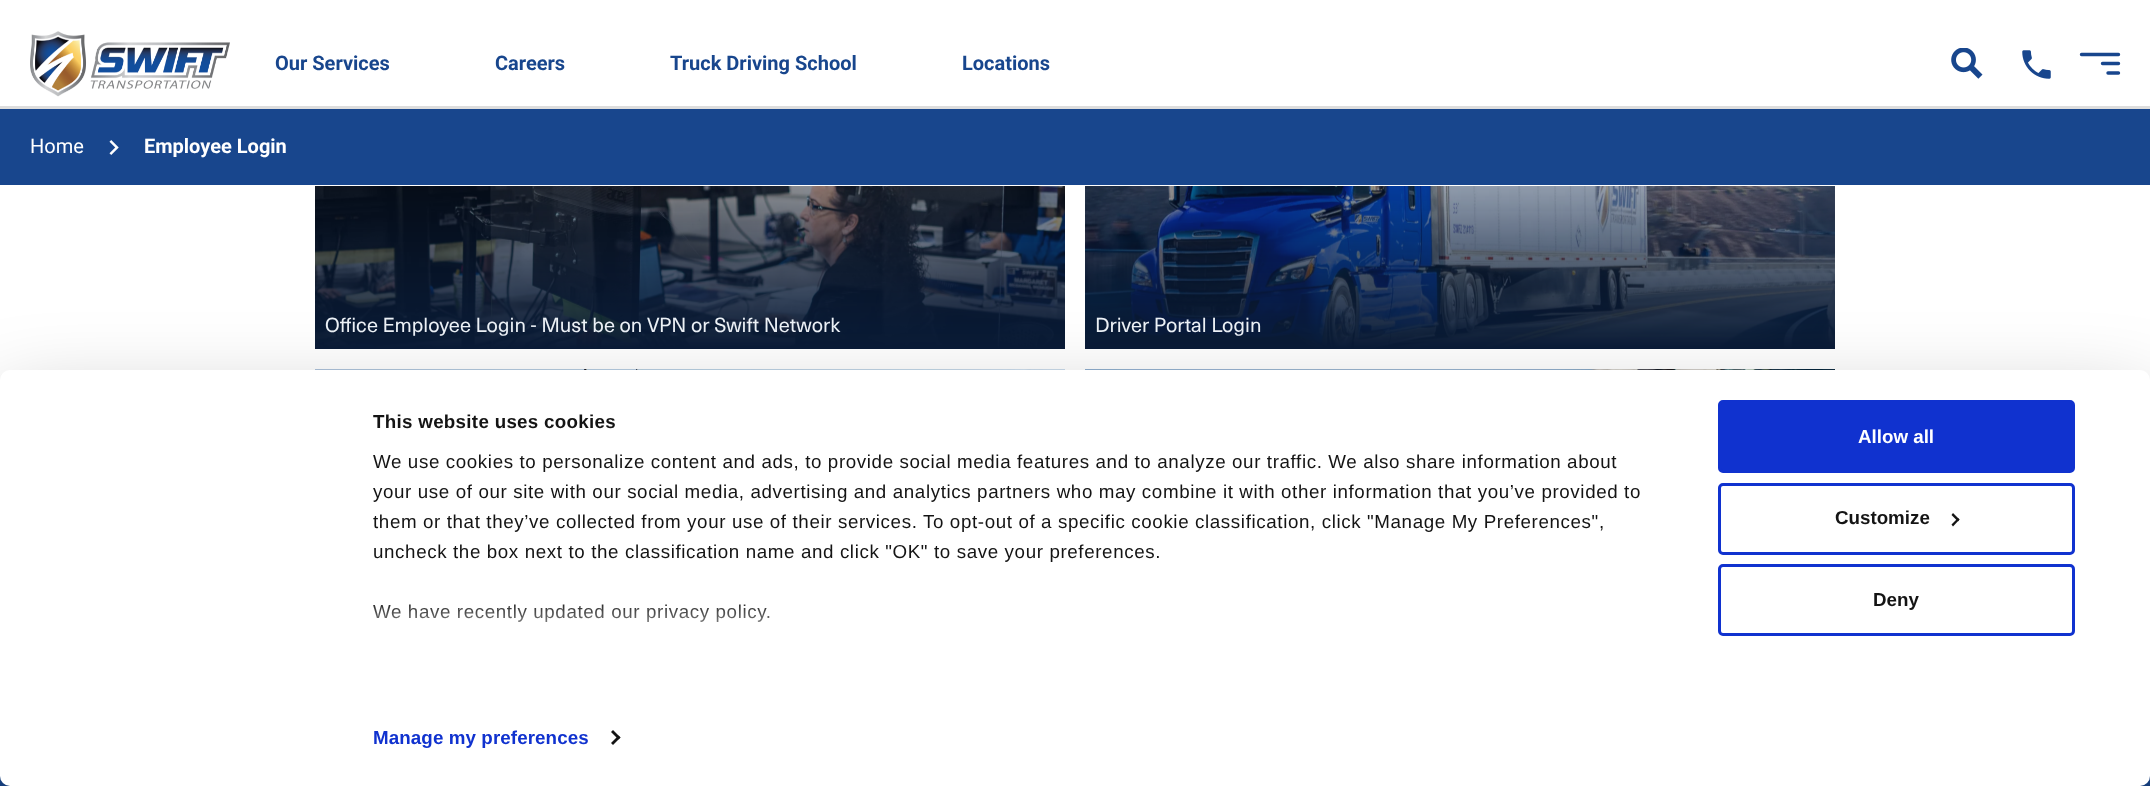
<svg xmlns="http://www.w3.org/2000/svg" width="2150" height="786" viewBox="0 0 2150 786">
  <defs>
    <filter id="blur1" x="-50%" y="-200%" width="200%" height="500%"><feGaussianBlur stdDeviation="44"/></filter>
    <linearGradient id="g1" gradientUnits="userSpaceOnUse" x1="1015" y1="691" x2="1015" y2="598"><stop offset="0" stop-color="#ffffff"/><stop offset="0.5" stop-color="#ffffff" stop-opacity="0.8"/><stop offset="1" stop-color="#ffffff" stop-opacity="0"/></linearGradient>
  </defs>
  <rect width="100%" height="100%" fill="#ffffff"/>
  <rect x="0" y="106" width="2150" height="3" fill="#dddddd"/>
  <image x="30" y="31" width="200" height="66" href="img1.png"/>
  <text x="275" y="70" font-family="Roboto" font-size="20" font-weight="bold" fill="#18468d">Our Services</text>
  <text x="495" y="70" font-family="Roboto" font-size="20" font-weight="bold" fill="#18468d">Careers</text>
  <text x="670" y="70" font-family="Roboto" font-size="20" font-weight="bold" fill="#18468d">Truck Driving School</text>
  <text x="962" y="70" font-family="Roboto" font-size="20" font-weight="bold" fill="#18468d">Locations</text>
  <image x="1951" y="48" width="32" height="31" href="img2.png"/>
  <image x="2022" y="50" width="29" height="29" href="img3.png"/>
  <path d="M2118.5 54.5H2081.5M2118.5 63.5H2102.5M2118.5 73H2108" fill="none" stroke="#18468d" stroke-width="3.4" stroke-linecap="round"/>
  <rect x="0" y="109" width="2150" height="76" fill="#18468d"/>
  <text x="30" y="153" font-family="Roboto" font-size="20" fill="#ffffff">Home</text>
  <image x="109" y="140" width="10" height="15" href="img4.png"/>
  <text x="144" y="153" font-family="Roboto" font-size="20" font-weight="bold" fill="#ffffff">Employee Login</text>
  <image x="315" y="186" width="750" height="163" href="img5.png"/>
  <text x="325" y="332" font-family="'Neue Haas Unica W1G'" font-size="20" fill="#edf2f7">Office Employee Login - Must be on VPN or Swift Network</text>
  <image x="1085" y="186" width="750" height="163" href="img6.png"/>
  <text x="1095" y="332" font-family="'Neue Haas Unica W1G'" font-size="20" fill="#edf2f7">Driver Portal Login</text>
  <image x="315" y="369" width="750" height="1" href="img7.png"/>
  <image x="1085" y="369" width="750" height="1" href="img8.png"/>
  <rect x="0" y="776" width="2150" height="10" fill="#18468d"/>
  <rect x="0" y="408" width="2150" height="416" rx="10" fill="#000000" fill-opacity="0.3" filter="url(#blur1)"/>
  <rect x="0" y="370" width="2150" height="416" rx="10" fill="#ffffff"/>
  <text x="373" y="428" font-family="Liberation Sans" font-size="18.75" font-weight="bold" letter-spacing="0.3" fill="#141414">This website uses cookies</text>
  <text x="373" y="468" font-family="Liberation Sans" font-size="18.75" letter-spacing="0.62" fill="#141414">We use cookies to personalize content and ads, to provide social media features and to analyze our traffic. We also share information about</text>
  <text x="373" y="498" font-family="Liberation Sans" font-size="18.75" letter-spacing="0.62" fill="#141414">your use of our site with our social media, advertising and analytics partners who may combine it with other information that you’ve provided to</text>
  <text x="373" y="528" font-family="Liberation Sans" font-size="18.75" letter-spacing="0.62" fill="#141414">them or that they’ve collected from your use of their services. To opt-out of a specific cookie classification, click "Manage My Preferences",</text>
  <text x="373" y="558" font-family="Liberation Sans" font-size="18.75" letter-spacing="0.62" fill="#141414">uncheck the box next to the classification name and click "OK" to save your preferences.</text>
  <text x="373" y="618" font-family="Liberation Sans" font-size="18.75" letter-spacing="0.62" fill="#141414">We have recently updated our privacy policy.</text>
  <rect x="372" y="604" width="398" height="18" fill="url(#g1)"/>
  <text x="373" y="744" font-family="Liberation Sans" font-size="18.75" font-weight="bold" letter-spacing="0.1" fill="#1032cf">Manage my preferences</text>
  <path d="M613 730L620.5 737.5L618.5 739.5L611 732Z" fill="#141414"/>
  <path d="M618.5 735.5L620.5 737.5L613 745L611 743Z" fill="#141414"/>
  <rect x="1719.5" y="401.5" width="354" height="70" rx="3.5" fill="#1032cf" stroke="#1032cf" stroke-width="3"/>
  <text x="1858" y="443" font-family="Liberation Sans" font-size="18.75" font-weight="bold" fill="#ffffff">Allow all</text>
  <rect x="1719.5" y="484.5" width="354" height="69" rx="3.5" fill="none" stroke="#1032cf" stroke-width="3"/>
  <text x="1835" y="524" font-family="Liberation Sans" font-size="18.75" font-weight="bold" fill="#141414">Customize</text>
  <path d="M1953 513L1959.5 519.5L1958 521.5L1951.5 515Z" fill="#141414"/>
  <path d="M1958 518L1959.5 519.5L1953 526.5L1951.5 524.5Z" fill="#141414"/>
  <rect x="1719.5" y="565.5" width="354" height="69" rx="3.5" fill="none" stroke="#1032cf" stroke-width="3"/>
  <text x="1873" y="606" font-family="Liberation Sans" font-size="18.75" font-weight="bold" fill="#141414">Deny</text>
</svg>
